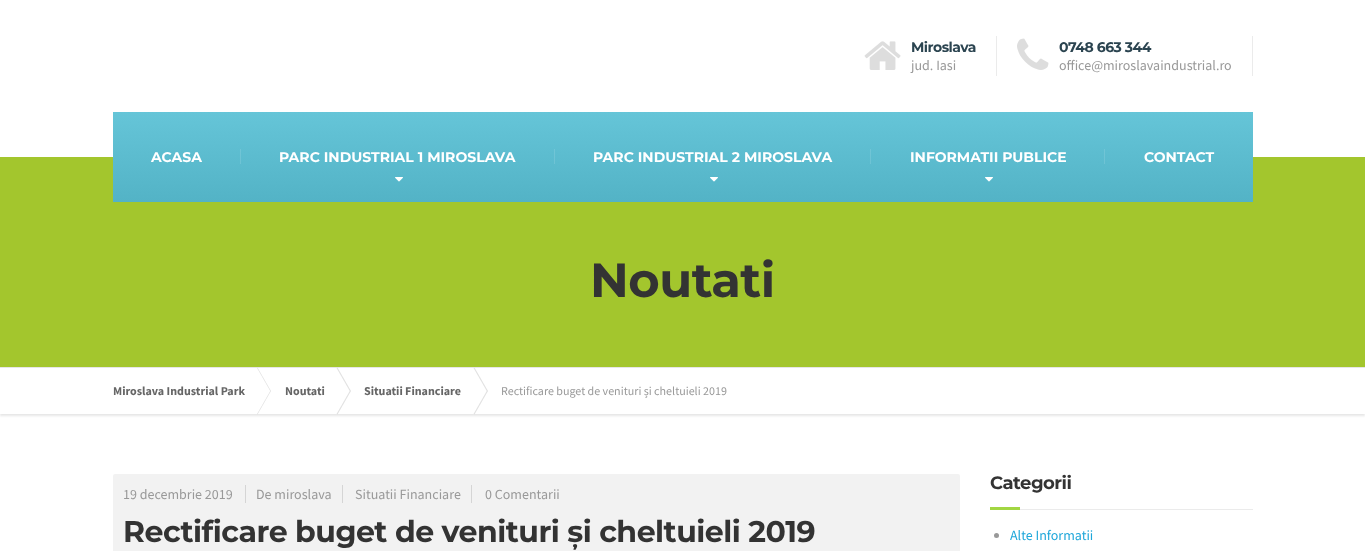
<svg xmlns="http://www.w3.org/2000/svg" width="1365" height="551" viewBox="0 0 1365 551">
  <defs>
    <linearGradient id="g1" gradientUnits="userSpaceOnUse" x1="683" y1="112" x2="683" y2="202"><stop offset="0" stop-color="#65c5d8"/><stop offset="1" stop-color="#53b3c6"/></linearGradient>
    <linearGradient id="g2" gradientUnits="userSpaceOnUse" x1="683" y1="112" x2="683" y2="202"><stop offset="0" stop-color="#77ccdd"/><stop offset="1" stop-color="#68bccd"/></linearGradient>
    <clipPath id="clip1"><rect x="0" y="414" width="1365" height="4"/></clipPath>
    <filter id="blur1" x="-50%" y="-200%" width="200%" height="500%"><feGaussianBlur stdDeviation="1"/></filter>
  </defs>
  <rect width="100%" height="100%" fill="#ffffff"/>
  <rect x="996" y="36" width="1" height="40" fill="#ebebeb"/>
  <image x="864" y="41" width="37" height="29" href="img1.png"/>
  <text x="911" y="52" font-family="Montserrat" font-size="14" font-weight="100" letter-spacing="-0.5" fill="#2b4450">Miroslava</text>
  <text x="911" y="70" font-family="Source Sans Pro" font-size="14" fill="#999999">jud. Iasi</text>
  <rect x="1252" y="36" width="1" height="40" fill="#ebebeb"/>
  <image x="1017" y="38" width="32" height="32" href="img2.png"/>
  <text x="1059" y="52" font-family="Montserrat" font-size="14" font-weight="100" letter-spacing="-0.5" fill="#2b4450">0748 663 344</text>
  <text x="1059" y="70" font-family="Source Sans Pro" font-size="14" fill="#999999">office@miroslavaindustrial.ro</text>
  <rect x="0" y="157" width="1365" height="210" fill="#a3c62d"/>
  <rect x="113" y="112" width="1140" height="90" fill="url(#g1)"/>
  <rect x="1104" y="149" width="1" height="15" fill="url(#g2)"/>
  <rect x="870" y="149" width="1" height="15" fill="url(#g2)"/>
  <rect x="554" y="149" width="1" height="15" fill="url(#g2)"/>
  <rect x="240" y="149" width="1" height="15" fill="url(#g2)"/>
  <text x="151" y="162" font-family="Montserrat" font-size="14" font-weight="100" fill="#ffffff">ACASA</text>
  <text x="279" y="162" font-family="Montserrat" font-size="14" font-weight="100" fill="#ffffff">PARC INDUSTRIAL 1 MIROSLAVA</text>
  <image x="395" y="177" width="8" height="5" href="img3.png"/>
  <text x="593" y="162" font-family="Montserrat" font-size="14" font-weight="100" fill="#ffffff">PARC INDUSTRIAL 2 MIROSLAVA</text>
  <image x="710" y="177" width="8" height="5" href="img3.png"/>
  <text x="910" y="162" font-family="Montserrat" font-size="14" font-weight="100" fill="#ffffff">INFORMATII PUBLICE</text>
  <image x="985" y="177" width="8" height="5" href="img3.png"/>
  <text x="1144" y="162" font-family="Montserrat" font-size="14" font-weight="100" fill="#ffffff">CONTACT</text>
  <rect x="0" y="367" width="1365" height="1" fill="#e6e6e6"/>
  <text x="590" y="297" font-family="Montserrat" font-size="48" font-weight="100" letter-spacing="-0.5" fill="#333333">Noutati</text>
  <g clip-path="url(#clip1)">
    <rect x="0" y="370" width="1365" height="46" fill="#e6e6e6" filter="url(#blur1)"/>
  </g>
  <text x="113" y="395" font-family="Source Sans Pro" font-size="12" font-weight="bold" fill="#666666">Miroslava Industrial Park</text>
  <path d="M257 368L257.5 367.5L271 391L270.5 391.5Z" fill="#e2e2e2"/>
  <path d="M270.5 390.5L271 391L257.5 414.5L257 414Z" fill="#e2e2e2"/>
  <text x="285" y="395" font-family="Source Sans Pro" font-size="12" font-weight="bold" fill="#666666">Noutati</text>
  <path d="M336.5 368L337.5 367.5L351 391L350 391.5Z" fill="#e2e2e2"/>
  <path d="M350 390.5L351 391L337.5 414.5L336.5 414Z" fill="#e2e2e2"/>
  <text x="364" y="395" font-family="Source Sans Pro" font-size="12" font-weight="bold" fill="#666666">Situatii Financiare</text>
  <path d="M473.5 368L474.5 367.5L488 391L487 391.5Z" fill="#e2e2e2"/>
  <path d="M487 390.5L488 391L474.5 414.5L473.5 414Z" fill="#e2e2e2"/>
  <text x="501" y="395" font-family="Source Sans Pro" font-size="12" fill="#999999">Rectificare buget de venituri și cheltuieli 2019</text>
  <rect x="113" y="474" width="847" height="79" rx="2" fill="#f2f2f2"/>
  <text x="123" y="499" font-family="Source Sans Pro" font-size="14" fill="#999999">19 decembrie 2019</text>
  <text x="256" y="499" font-family="Source Sans Pro" font-size="14" fill="#999999">De miroslava</text>
  <rect x="342" y="485" width="1" height="18" fill="#d5d5d5"/>
  <rect x="245" y="485" width="1" height="18" fill="#d5d5d5"/>
  <text x="355" y="499" font-family="Source Sans Pro" font-size="14" fill="#999999">Situatii Financiare</text>
  <rect x="471" y="485" width="1" height="18" fill="#d5d5d5"/>
  <text x="485" y="499" font-family="Source Sans Pro" font-size="14" fill="#999999">0 Comentarii</text>
  <text x="123" y="542" font-family="Montserrat" font-size="30" font-weight="100" letter-spacing="-0.5" fill="#333333">Rectificare buget de venituri și cheltuieli 2019</text>
  <rect x="1020" y="509" width="233" height="1" fill="#ebebeb"/>
  <text x="990" y="489" font-family="Montserrat" font-size="18" font-weight="100" letter-spacing="-0.5" fill="#333333">Categorii</text>
  <rect x="990" y="507" width="30" height="3" fill="#a2d642"/>
  <circle cx="996.5" cy="535.5" r="2.5" fill="#999999"/>
  <text x="1010" y="540" font-family="Source Sans Pro" font-size="14" fill="#1fa7da">Alte Informatii</text>
</svg>
